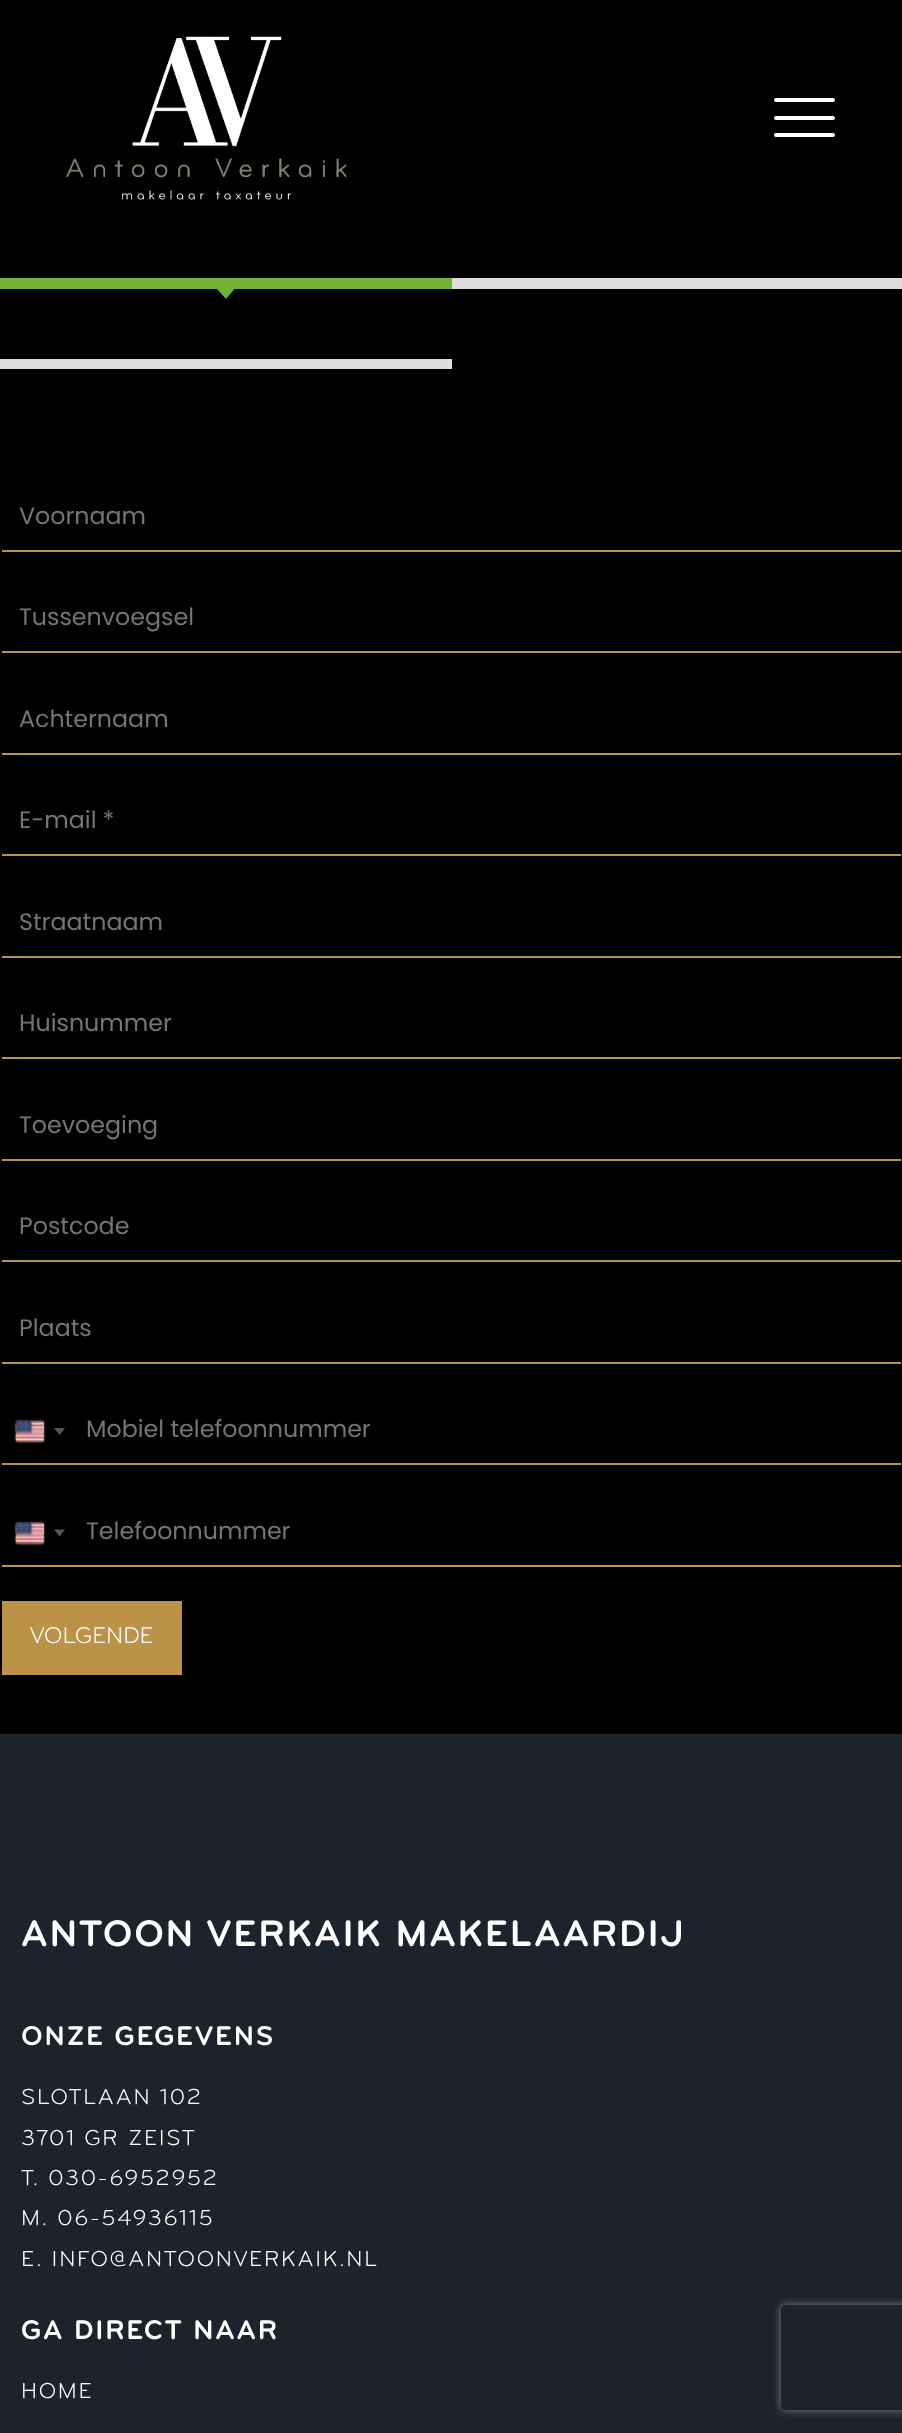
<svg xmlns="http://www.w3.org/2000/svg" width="902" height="2433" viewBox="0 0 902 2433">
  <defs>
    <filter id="blur1" x="-50%" y="-200%" width="200%" height="500%"><feGaussianBlur stdDeviation="1"/></filter>
    <clipPath id="clip1"><path d="M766 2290H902V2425H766ZM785 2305H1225C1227 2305 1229 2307 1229 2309V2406C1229 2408 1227 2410 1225 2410H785C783 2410 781 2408 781 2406V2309C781 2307 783 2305 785 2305Z" clip-rule="evenodd"/></clipPath>
    <filter id="blur2" x="-50%" y="-200%" width="200%" height="500%"><feGaussianBlur stdDeviation="4.5"/></filter>
  </defs>
  <rect width="100%" height="100%" fill="#000000"/>
  <image x="66" y="36" width="281" height="164" href="img1.png"/>
  <rect x="774" y="98" width="61" height="4" rx="2" fill="#ffffff"/>
  <rect x="774" y="116" width="61" height="4" rx="2" fill="#ffffff"/>
  <rect x="774" y="133" width="61" height="4" rx="2" fill="#ffffff"/>
  <rect x="0" y="278" width="452" height="11" fill="#72b239"/>
  <path d="M217 289H234.5L226 299Z" fill="#72b239"/>
  <rect x="452" y="278" width="450" height="11" fill="#dddddd"/>
  <rect x="0" y="359" width="452" height="10" fill="#dddddd"/>
  <rect x="2" y="550" width="899" height="2" fill="#bb9248"/>
  <text x="19" y="524" font-family="Poppins" font-size="23.75" fill="#757575">Voornaam</text>
  <rect x="2" y="651" width="899" height="2" fill="#bb9248"/>
  <text x="19" y="625" font-family="Poppins" font-size="23.75" fill="#757575">Tussenvoegsel</text>
  <rect x="2" y="753" width="899" height="2" fill="#bb9248"/>
  <text x="19" y="727" font-family="Poppins" font-size="23.75" fill="#757575">Achternaam</text>
  <rect x="2" y="854" width="899" height="2" fill="#bb9248"/>
  <text x="19" y="828" font-family="Poppins" font-size="23.75" fill="#757575">E-mail *</text>
  <rect x="2" y="956" width="899" height="2" fill="#bb9248"/>
  <text x="19" y="930" font-family="Poppins" font-size="23.75" fill="#757575">Straatnaam</text>
  <rect x="2" y="1057" width="899" height="2" fill="#bb9248"/>
  <text x="19" y="1031" font-family="Poppins" font-size="23.75" fill="#757575">Huisnummer</text>
  <rect x="2" y="1159" width="899" height="2" fill="#bb9248"/>
  <text x="19" y="1133" font-family="Poppins" font-size="23.75" fill="#757575">Toevoeging</text>
  <rect x="2" y="1260" width="899" height="2" fill="#bb9248"/>
  <text x="19" y="1234" font-family="Poppins" font-size="23.75" fill="#757575">Postcode</text>
  <rect x="2" y="1362" width="899" height="2" fill="#bb9248"/>
  <text x="19" y="1336" font-family="Poppins" font-size="23.75" fill="#757575">Plaats</text>
  <rect x="16" y="1421" width="28" height="21" rx="2" fill="#888888" filter="url(#blur1)"/>
  <image x="15" y="1421" width="29" height="21" href="img2.png"/>
  <path d="M54 1428H65L59.5 1435Z" fill="#555555"/>
  <rect x="2" y="1463" width="899" height="2" fill="#bb9248"/>
  <text x="86" y="1437" font-family="Poppins" font-size="23.75" fill="#757575">Mobiel telefoonnummer</text>
  <rect x="16" y="1523" width="28" height="21" rx="2" fill="#888888" filter="url(#blur1)"/>
  <image x="15" y="1522" width="29" height="22" href="img3.png"/>
  <path d="M54 1529.5H65L59.5 1536.5Z" fill="#555555"/>
  <rect x="2" y="1565" width="899" height="2" fill="#bb9248"/>
  <text x="86" y="1539" font-family="Poppins" font-size="23.75" fill="#757575">Telefoonnummer</text>
  <rect x="2" y="1601" width="180" height="74" fill="#bb9248"/>
  <text x="30" y="1643" font-family="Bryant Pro" font-size="23.75" fill="#ffffff">VOLGENDE</text>
  <rect x="0" y="1734" width="902" height="699" fill="#1d232c"/>
  <text x="21" y="1946" font-family="Bryant Pro" font-size="38.4" font-weight="bold" letter-spacing="1.75" fill="#ffffff">ANTOON VERKAIK MAKELAARDIJ</text>
  <text x="21" y="2045" font-family="Bryant Pro" font-size="28" font-weight="bold" letter-spacing="1.75" fill="#ffffff">ONZE GEGEVENS</text>
  <text x="21" y="2104" font-family="Bryant Pro" font-size="22.4" letter-spacing="1.75" fill="#ffffff">SLOTLAAN 102</text>
  <text x="21" y="2145" font-family="Bryant Pro" font-size="22.4" letter-spacing="1.75" fill="#ffffff">3701 GR ZEIST</text>
  <text x="21" y="2185" font-family="Bryant Pro" font-size="22.4" letter-spacing="1.75" fill="#ffffff">T. 030-6952952</text>
  <text x="21" y="2225" font-family="Bryant Pro" font-size="22.4" letter-spacing="1.75" fill="#ffffff">M. 06-54936115</text>
  <text x="21" y="2266" font-family="Bryant Pro" font-size="22.4" letter-spacing="1.75" fill="#ffffff">E. INFO@ANTOONVERKAIK.NL</text>
  <text x="21" y="2339" font-family="Bryant Pro" font-size="28" font-weight="bold" letter-spacing="1.75" fill="#ffffff">GA DIRECT NAAR</text>
  <text x="21" y="2398" font-family="Bryant Pro" font-size="22.4" letter-spacing="1.75" fill="#ffffff">HOME</text>
  <g clip-path="url(#clip1)">
    <rect x="781" y="2305" width="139" height="105" rx="4" fill="#808080" filter="url(#blur2)"/>
  </g>
</svg>
